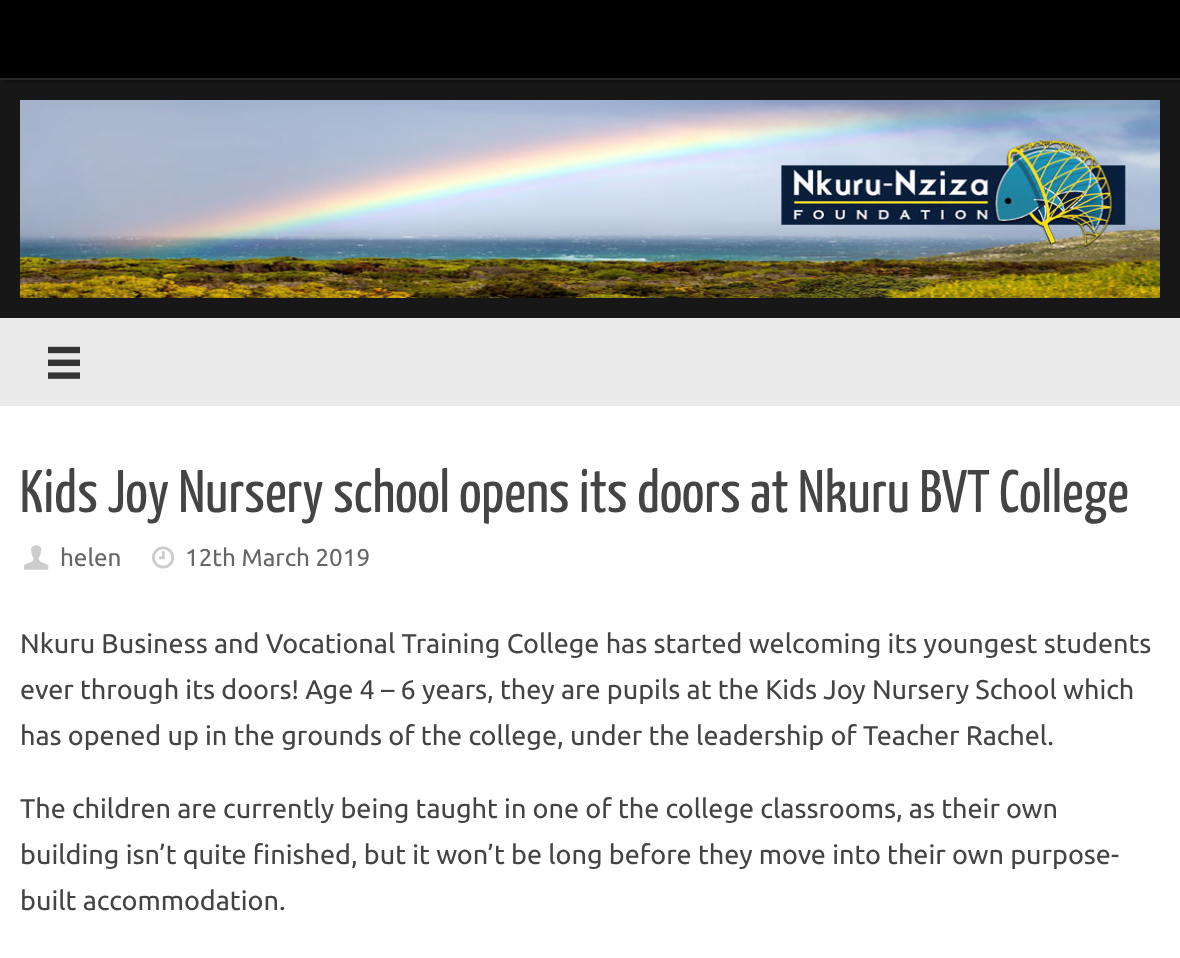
<svg xmlns="http://www.w3.org/2000/svg" width="1180" height="958" viewBox="0 0 1180 958">
  <defs>
    <filter id="blur1" x="-50%" y="-200%" width="200%" height="500%"><feGaussianBlur stdDeviation="3"/></filter>
  </defs>
  <rect width="100%" height="100%" fill="#171717"/>
  <rect x="6" y="0" width="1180" height="80" fill="#000000" filter="url(#blur1)"/>
  <rect x="0" y="0" width="1180" height="78" fill="#000000"/>
  <rect x="0" y="78" width="1180" height="2" fill="#282828"/>
  <image x="20" y="100" width="1140" height="198" href="img1.png"/>
  <rect x="0" y="318" width="1180" height="88" fill="#eaeaea"/>
  <image x="48" y="346" width="32" height="33" href="img2.png"/>
  <rect x="0" y="406" width="1180" height="552" fill="#ffffff"/>
  <text x="20" y="512" font-family="Yanone Kaffeesatz" font-size="60" fill="#444444">Kids Joy Nursery school opens its doors at Nkuru BVT College</text>
  <image x="24" y="545" width="25" height="25" href="img3.png"/>
  <text x="60" y="566" font-family="Ubuntu" font-size="24.25" fill="#666666">helen</text>
  <image x="152" y="546" width="23" height="23" href="img4.png"/>
  <text x="185" y="566" font-family="Ubuntu" font-size="24.25" fill="#666666">12th March 2019</text>
  <text x="20" y="653" font-family="Ubuntu" font-size="27" fill="#444444">Nkuru Business and Vocational Training College has started welcoming its youngest students</text>
  <text x="20" y="699" font-family="Ubuntu" font-size="27" fill="#444444">ever through its doors! Age 4 – 6 years, they are pupils at the Kids Joy Nursery School which</text>
  <text x="20" y="745" font-family="Ubuntu" font-size="27" fill="#444444">has opened up in the grounds of the college, under the leadership of Teacher Rachel.</text>
  <text x="20" y="818" font-family="Ubuntu" font-size="27" fill="#444444">The children are currently being taught in one of the college classrooms, as their own</text>
  <text x="20" y="864" font-family="Ubuntu" font-size="27" fill="#444444">building isn’t quite finished, but it won’t be long before they move into their own purpose-</text>
  <text x="20" y="910" font-family="Ubuntu" font-size="27" fill="#444444">built accommodation.</text>
</svg>
